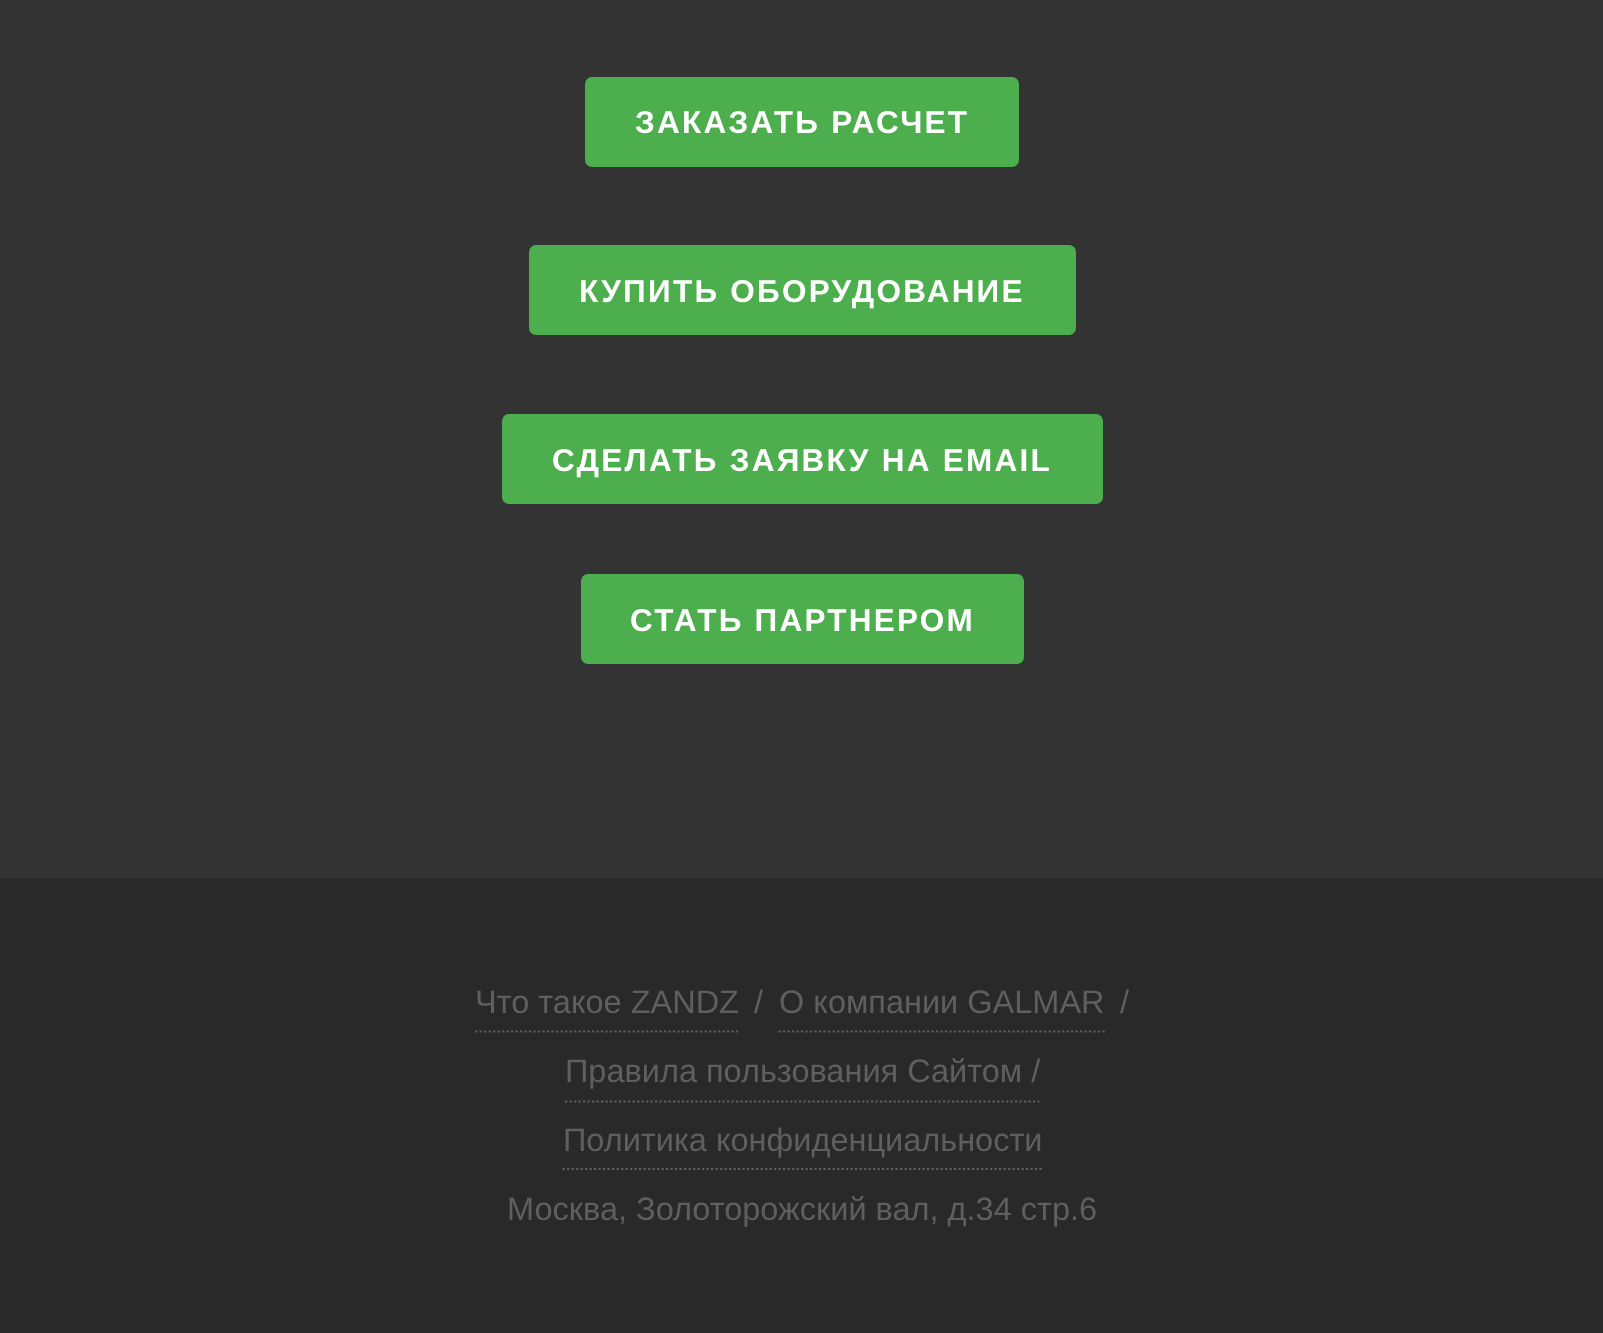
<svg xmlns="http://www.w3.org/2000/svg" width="1603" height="1333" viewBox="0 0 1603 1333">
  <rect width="100%" height="100%" fill="#333333"/>
  <rect x="585" y="77" width="434" height="90" rx="7" fill="#4cae4c"/>
  <text x="635" y="133" font-family="Liberation Sans" font-size="31.5" font-weight="bold" letter-spacing="2.25" fill="#ffffff">ЗАКАЗАТЬ РАСЧЕТ</text>
  <rect x="529" y="245" width="547" height="90" rx="7" fill="#4cae4c"/>
  <text x="579" y="302" font-family="Liberation Sans" font-size="31.5" font-weight="bold" letter-spacing="2.25" fill="#ffffff">КУПИТЬ ОБОРУДОВАНИЕ</text>
  <rect x="502" y="414" width="601" height="90" rx="7" fill="#4cae4c"/>
  <text x="552" y="471" font-family="Liberation Sans" font-size="31.5" font-weight="bold" letter-spacing="2.25" fill="#ffffff">СДЕЛАТЬ ЗАЯВКУ НА EMAIL</text>
  <rect x="581" y="574" width="443" height="90" rx="7" fill="#4cae4c"/>
  <text x="630" y="631" font-family="Liberation Sans" font-size="31.5" font-weight="bold" letter-spacing="2.25" fill="#ffffff">СТАТЬ ПАРТНЕРОМ</text>
  <rect x="0" y="878" width="1603" height="455" fill="#292929"/>
  <path d="M475 1031.5H738" fill="none" stroke="#5f5f5f" stroke-width="2.2" stroke-dasharray="2.25 2.25"/>
  <text x="475" y="1013" font-family="Liberation Sans" font-size="32.5" fill="#5f5f5f">Что такое ZANDZ</text>
  <text x="754" y="1013" font-family="Liberation Sans" font-size="32.5" fill="#5f5f5f">/</text>
  <path d="M778.5 1031.5H1105" fill="none" stroke="#5f5f5f" stroke-width="2.2" stroke-dasharray="2.25 2.25"/>
  <text x="779" y="1013" font-family="Liberation Sans" font-size="32.5" fill="#5f5f5f">О компании GALMAR</text>
  <text x="1120" y="1013" font-family="Liberation Sans" font-size="32.5" fill="#5f5f5f">/</text>
  <path d="M565 1101.5H1039.5" fill="none" stroke="#5f5f5f" stroke-width="2.2" stroke-dasharray="2.25 2.25"/>
  <text x="565" y="1082" font-family="Liberation Sans" font-size="32.5" fill="#5f5f5f">Правила пользования Сайтом /</text>
  <path d="M562.5 1169H1042" fill="none" stroke="#5f5f5f" stroke-width="2.2" stroke-dasharray="2.25 2.25"/>
  <text x="563" y="1151" font-family="Liberation Sans" font-size="32.5" fill="#5f5f5f">Политика конфиденциальности</text>
  <text x="507" y="1220" font-family="Liberation Sans" font-size="32.5" fill="#5f5f5f">Москва, Золоторожский вал, д.34 стр.6</text>
</svg>
